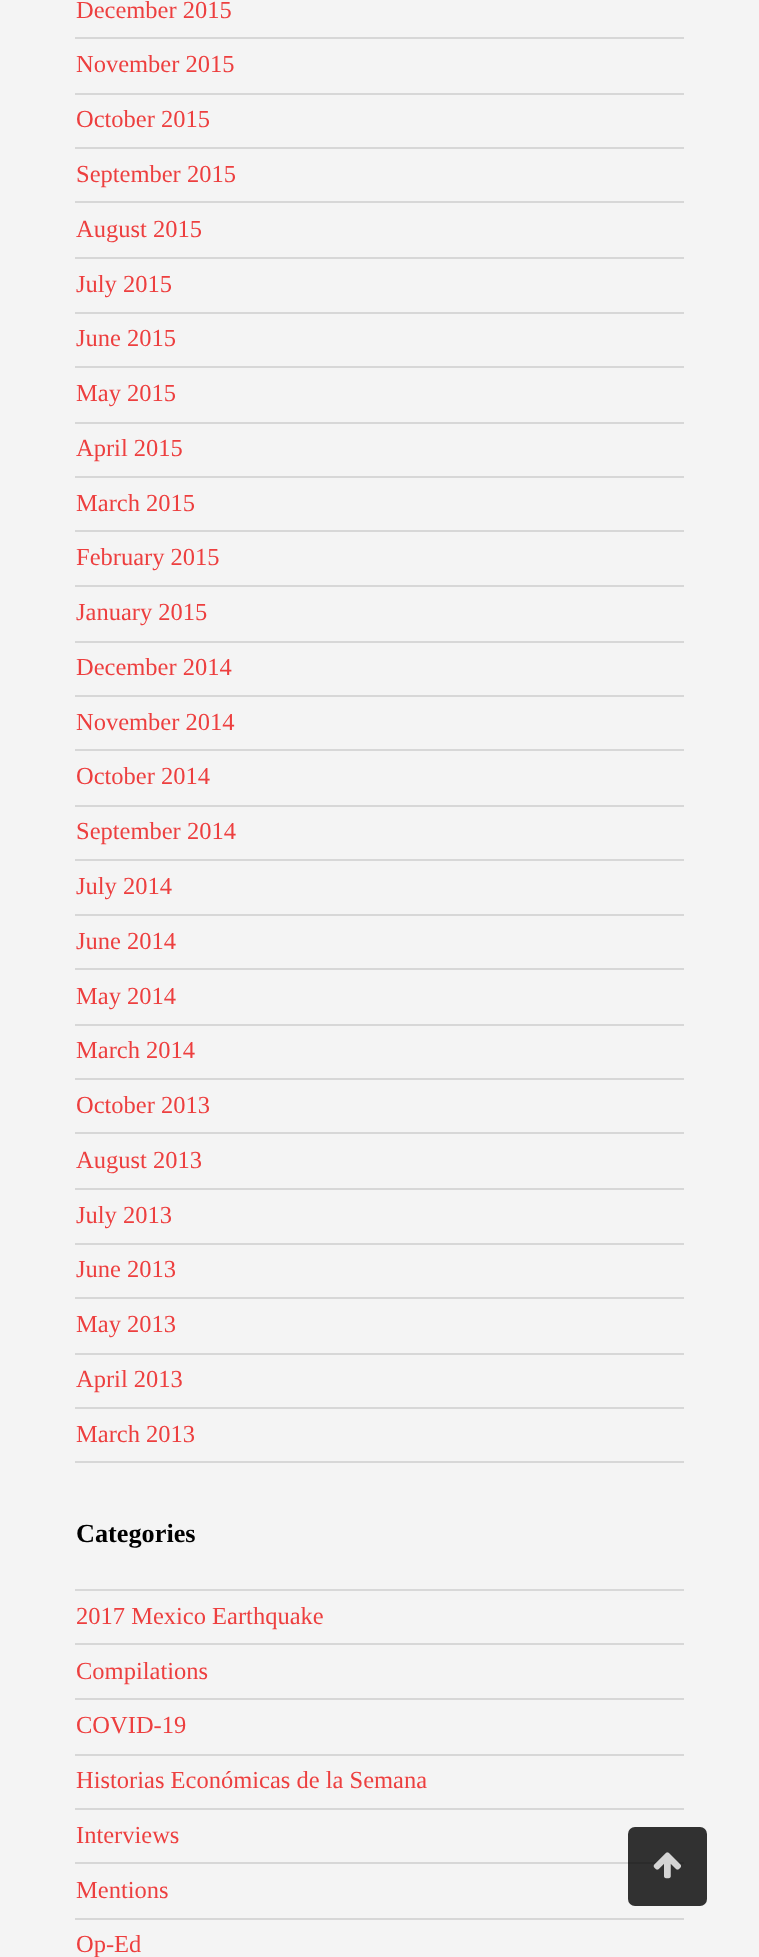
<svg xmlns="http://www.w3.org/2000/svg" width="759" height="1957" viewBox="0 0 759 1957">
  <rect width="100%" height="100%" fill="#f4f4f4"/>
  <rect x="75" y="37" width="609" height="2" fill="#d7d7d7"/>
  <text x="76" y="18" font-family="Liberation Serif" font-size="24.5" fill="#ed3f3f">December 2015</text>
  <rect x="75" y="93" width="609" height="2" fill="#d7d7d7"/>
  <text x="76" y="72" font-family="Liberation Serif" font-size="24.5" fill="#ed3f3f">November 2015</text>
  <rect x="75" y="147" width="609" height="2" fill="#d7d7d7"/>
  <text x="76" y="127" font-family="Liberation Serif" font-size="24.5" fill="#ed3f3f">October 2015</text>
  <rect x="75" y="201" width="609" height="2" fill="#d7d7d7"/>
  <text x="76" y="182" font-family="Liberation Serif" font-size="24.5" fill="#ed3f3f">September 2015</text>
  <rect x="75" y="257" width="609" height="2" fill="#d7d7d7"/>
  <text x="76" y="237" font-family="Liberation Serif" font-size="24.5" fill="#ed3f3f">August 2015</text>
  <rect x="75" y="312" width="609" height="2" fill="#d7d7d7"/>
  <text x="76" y="292" font-family="Liberation Serif" font-size="24.5" fill="#ed3f3f">July 2015</text>
  <rect x="75" y="366" width="609" height="2" fill="#d7d7d7"/>
  <text x="76" y="346" font-family="Liberation Serif" font-size="24.5" fill="#ed3f3f">June 2015</text>
  <rect x="75" y="422" width="609" height="2" fill="#d7d7d7"/>
  <text x="76" y="401" font-family="Liberation Serif" font-size="24.5" fill="#ed3f3f">May 2015</text>
  <rect x="75" y="476" width="609" height="2" fill="#d7d7d7"/>
  <text x="76" y="456" font-family="Liberation Serif" font-size="24.5" fill="#ed3f3f">April 2015</text>
  <rect x="75" y="530" width="609" height="2" fill="#d7d7d7"/>
  <text x="76" y="511" font-family="Liberation Serif" font-size="24.5" fill="#ed3f3f">March 2015</text>
  <rect x="75" y="585" width="609" height="2" fill="#d7d7d7"/>
  <text x="76" y="565" font-family="Liberation Serif" font-size="24.5" fill="#ed3f3f">February 2015</text>
  <rect x="75" y="641" width="609" height="2" fill="#d7d7d7"/>
  <text x="76" y="620" font-family="Liberation Serif" font-size="24.5" fill="#ed3f3f">January 2015</text>
  <rect x="75" y="695" width="609" height="2" fill="#d7d7d7"/>
  <text x="76" y="675" font-family="Liberation Serif" font-size="24.5" fill="#ed3f3f">December 2014</text>
  <rect x="75" y="749" width="609" height="2" fill="#d7d7d7"/>
  <text x="76" y="730" font-family="Liberation Serif" font-size="24.5" fill="#ed3f3f">November 2014</text>
  <rect x="75" y="805" width="609" height="2" fill="#d7d7d7"/>
  <text x="76" y="784" font-family="Liberation Serif" font-size="24.5" fill="#ed3f3f">October 2014</text>
  <rect x="75" y="859" width="609" height="2" fill="#d7d7d7"/>
  <text x="76" y="839" font-family="Liberation Serif" font-size="24.5" fill="#ed3f3f">September 2014</text>
  <rect x="75" y="914" width="609" height="2" fill="#d7d7d7"/>
  <text x="76" y="894" font-family="Liberation Serif" font-size="24.5" fill="#ed3f3f">July 2014</text>
  <rect x="75" y="968" width="609" height="2" fill="#d7d7d7"/>
  <text x="76" y="949" font-family="Liberation Serif" font-size="24.5" fill="#ed3f3f">June 2014</text>
  <rect x="75" y="1024" width="609" height="2" fill="#d7d7d7"/>
  <text x="76" y="1004" font-family="Liberation Serif" font-size="24.5" fill="#ed3f3f">May 2014</text>
  <rect x="75" y="1078" width="609" height="2" fill="#d7d7d7"/>
  <text x="76" y="1058" font-family="Liberation Serif" font-size="24.5" fill="#ed3f3f">March 2014</text>
  <rect x="75" y="1132" width="609" height="2" fill="#d7d7d7"/>
  <text x="76" y="1113" font-family="Liberation Serif" font-size="24.5" fill="#ed3f3f">October 2013</text>
  <rect x="75" y="1188" width="609" height="2" fill="#d7d7d7"/>
  <text x="76" y="1168" font-family="Liberation Serif" font-size="24.5" fill="#ed3f3f">August 2013</text>
  <rect x="75" y="1243" width="609" height="2" fill="#d7d7d7"/>
  <text x="76" y="1223" font-family="Liberation Serif" font-size="24.5" fill="#ed3f3f">July 2013</text>
  <rect x="75" y="1297" width="609" height="2" fill="#d7d7d7"/>
  <text x="76" y="1277" font-family="Liberation Serif" font-size="24.5" fill="#ed3f3f">June 2013</text>
  <rect x="75" y="1353" width="609" height="2" fill="#d7d7d7"/>
  <text x="76" y="1332" font-family="Liberation Serif" font-size="24.5" fill="#ed3f3f">May 2013</text>
  <rect x="75" y="1407" width="609" height="2" fill="#d7d7d7"/>
  <text x="76" y="1387" font-family="Liberation Serif" font-size="24.5" fill="#ed3f3f">April 2013</text>
  <rect x="75" y="1461" width="609" height="2" fill="#d7d7d7"/>
  <text x="76" y="1442" font-family="Liberation Serif" font-size="24.5" fill="#ed3f3f">March 2013</text>
  <text x="76" y="1542" font-family="Liberation Serif" font-size="26.25" font-weight="bold" fill="#000000">Categories</text>
  <rect x="75" y="1589" width="609" height="2" fill="#d8d8d8"/>
  <rect x="75" y="1643" width="609" height="2" fill="#d7d7d7"/>
  <text x="76" y="1624" font-family="Liberation Serif" font-size="24.5" fill="#ed3f3f">2017 Mexico Earthquake</text>
  <rect x="75" y="1698" width="609" height="2" fill="#d7d7d7"/>
  <text x="76" y="1679" font-family="Liberation Serif" font-size="24.5" fill="#ed3f3f">Compilations</text>
  <rect x="75" y="1754" width="609" height="2" fill="#d7d7d7"/>
  <text x="76" y="1733" font-family="Liberation Serif" font-size="24.5" fill="#ed3f3f">COVID-19</text>
  <rect x="75" y="1808" width="609" height="2" fill="#d7d7d7"/>
  <text x="76" y="1788" font-family="Liberation Serif" font-size="24.5" fill="#ed3f3f">Historias Económicas de la Semana</text>
  <rect x="75" y="1862" width="609" height="2" fill="#d7d7d7"/>
  <text x="76" y="1843" font-family="Liberation Serif" font-size="24.5" fill="#ed3f3f">Interviews</text>
  <rect x="75" y="1918" width="609" height="2" fill="#d7d7d7"/>
  <text x="76" y="1898" font-family="Liberation Serif" font-size="24.5" fill="#ed3f3f">Mentions</text>
  <text x="76" y="1952" font-family="Liberation Serif" font-size="24.5" fill="#ed3f3f">Op-Ed</text>
  <rect x="628" y="1827" width="79" height="79" rx="7" fill="#000000" fill-opacity="0.8"/>
  <image x="653" y="1852" width="28" height="27" href="img1.png"/>
</svg>
